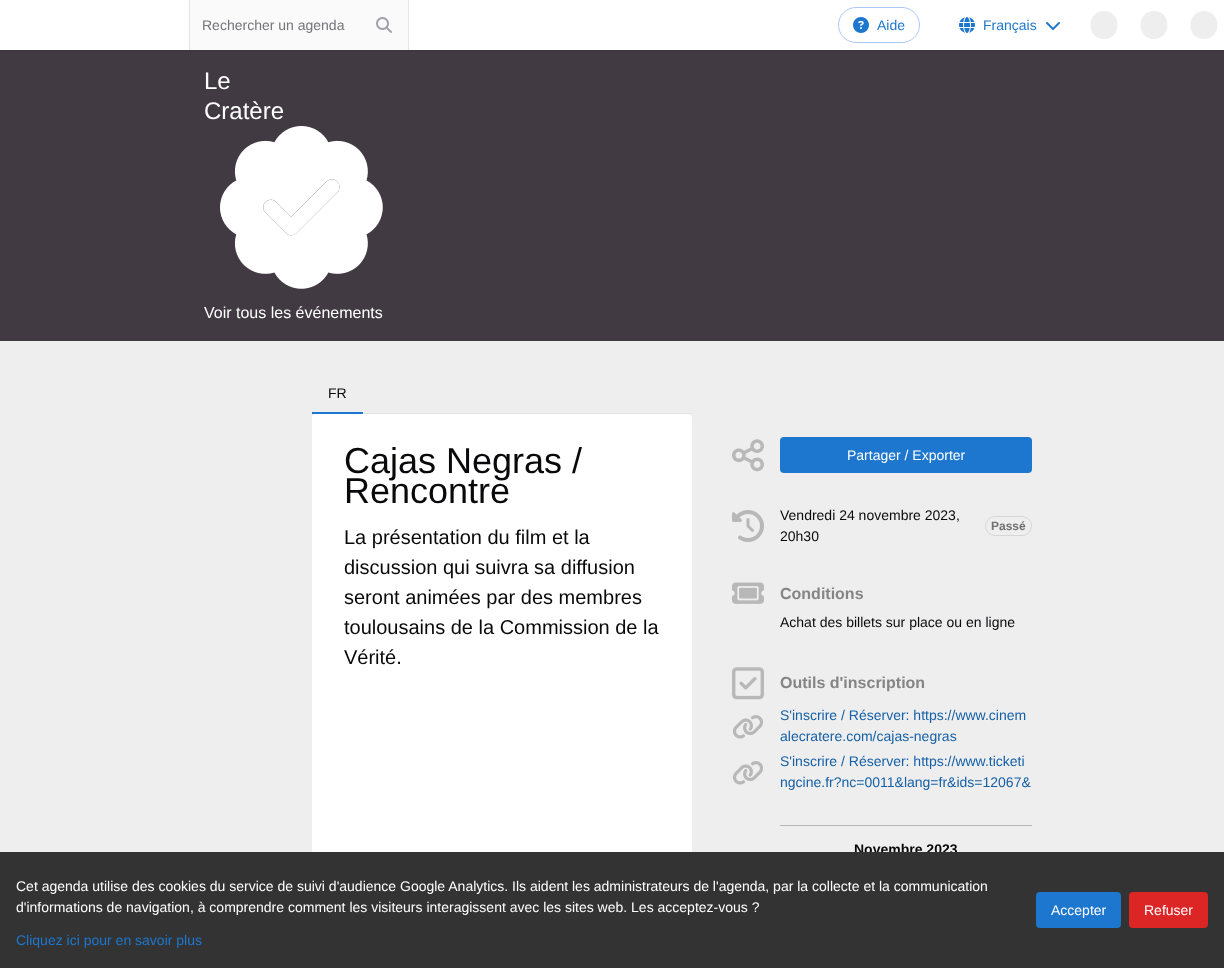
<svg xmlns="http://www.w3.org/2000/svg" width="1224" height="968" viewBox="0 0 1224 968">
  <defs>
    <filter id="blur1" x="-50%" y="-200%" width="200%" height="500%"><feGaussianBlur stdDeviation="1"/></filter>
    <linearGradient id="g1" gradientUnits="userSpaceOnUse" x1="804" y1="5" x2="944" y2="5"><stop offset="0" stop-color="#eeeeee"/><stop offset="0.5" stop-color="#d6d6d6"/><stop offset="1" stop-color="#eeeeee"/></linearGradient>
  </defs>
  <rect width="100%" height="100%" fill="#eeeeee"/>
  <rect x="0" y="50" width="1224" height="291" fill="#413a42"/>
  <rect x="0" y="1" width="1224" height="50" fill="#18181b" fill-opacity="0.1" filter="url(#blur1)"/>
  <rect x="0" y="0" width="1224" height="50" fill="#ffffff"/>
  <rect x="190" y="0" width="218" height="50" fill="#fafafa"/>
  <rect x="408" y="0" width="1" height="50" fill="#e4e4e7"/>
  <rect x="189" y="0" width="1" height="50" fill="#e4e4e7"/>
  <text x="202" y="30" font-family="Liberation Sans" font-size="14" fill="#74747b">Rechercher un agenda</text>
  <image x="376" y="17" width="16" height="16" href="img1.png"/>
  <rect x="838.5" y="7.5" width="81" height="35" rx="17.5" fill="none" stroke="#acc7fc"/>
  <image x="853" y="17" width="16" height="16" href="img2.png"/>
  <text x="877" y="30" font-family="Liberation Sans" font-size="14" fill="#1d77ce">Aide</text>
  <image x="959" y="17" width="16" height="16" href="img3.png"/>
  <text x="983" y="30" font-family="Liberation Sans" font-size="14" fill="#1d77ce">Français</text>
  <image x="1046" y="22" width="14" height="8" href="img4.png"/>
  <path d="M1104 11C1086 11 1086 39 1104 39C1122 39 1122 11 1104 11ZM1154 11C1136 11 1136 39 1154 39C1172 39 1172 11 1154 11ZM1204 11C1186 11 1186 39 1204 39C1222 39 1222 11 1204 11Z" fill="url(#g1)" fill-rule="evenodd"/>
  <text x="204" y="89" font-family="Liberation Sans" font-size="24" fill="#ffffff">Le</text>
  <text x="204" y="119" font-family="Liberation Sans" font-size="24" fill="#ffffff">Cratère</text>
  <image x="220" y="126" width="163" height="163" href="img5.png"/>
  <text x="204" y="318" font-family="Liberation Sans" font-size="16" fill="#ffffff">Voir tous les événements</text>
  <rect x="363" y="413" width="329" height="1" fill="#e4e4e7"/>
  <text x="328" y="398" font-family="Liberation Sans" font-size="14" fill="#09090b">FR</text>
  <rect x="312" y="412" width="51" height="2" fill="#1d77ce"/>
  <rect x="312" y="414" width="380" height="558" rx="4" fill="#ffffff"/>
  <text x="344" y="473" font-family="Liberation Sans" font-size="36" fill="#09090b">Cajas Negras /</text>
  <text x="344" y="503" font-family="Liberation Sans" font-size="36" fill="#09090b">Rencontre</text>
  <text x="344" y="544" font-family="Liberation Sans" font-size="20" fill="#09090b">La présentation du film et la</text>
  <text x="344" y="574" font-family="Liberation Sans" font-size="20" fill="#09090b">discussion qui suivra sa diffusion</text>
  <text x="344" y="604" font-family="Liberation Sans" font-size="20" fill="#09090b">seront animées par des membres</text>
  <text x="344" y="634" font-family="Liberation Sans" font-size="20" fill="#09090b">toulousains de la Commission de la</text>
  <text x="344" y="664" font-family="Liberation Sans" font-size="20" fill="#09090b">Vérité.</text>
  <image x="732" y="439" width="32" height="33" href="img6.png"/>
  <rect x="780" y="437" width="252" height="36" rx="4" fill="#1d77ce"/>
  <text x="847" y="460" font-family="Liberation Sans" font-size="14" fill="#ffffff">Partager / Exporter</text>
  <image x="732" y="510" width="32" height="32" href="img7.png"/>
  <text x="780" y="520" font-family="Liberation Sans" font-size="14" fill="#09090b">Vendredi 24 novembre 2023,</text>
  <text x="780" y="541" font-family="Liberation Sans" font-size="14" fill="#09090b">20h30</text>
  <rect x="985.5" y="516.5" width="46" height="19" rx="9.5" fill="none" stroke="#d6d6d6"/>
  <text x="991" y="530" font-family="Liberation Sans" font-size="12" font-weight="bold" fill="#707070">Passé</text>
  <image x="732" y="582" width="32" height="22" href="img8.png"/>
  <text x="780" y="599" font-family="Liberation Sans" font-size="16" font-weight="bold" fill="#858585">Conditions</text>
  <text x="780" y="627" font-family="Liberation Sans" font-size="14" fill="#09090b">Achat des billets sur place ou en ligne</text>
  <image x="732" y="667" width="32" height="33" href="img9.png"/>
  <text x="780" y="688" font-family="Liberation Sans" font-size="16" font-weight="bold" fill="#858585">Outils d'inscription</text>
  <image x="732" y="715" width="31" height="24" href="img10.png"/>
  <text x="780" y="720" font-family="Liberation Sans" font-size="14" fill="#1560a7">S'inscrire / Réserver: https://www.cinem</text>
  <text x="780" y="741" font-family="Liberation Sans" font-size="14" fill="#1560a7">alecratere.com/cajas-negras</text>
  <image x="732" y="761" width="31" height="24" href="img10.png"/>
  <text x="780" y="766" font-family="Liberation Sans" font-size="14" fill="#1560a7">S'inscrire / Réserver: https://www.ticketi</text>
  <text x="780" y="787" font-family="Liberation Sans" font-size="14" fill="#1560a7">ngcine.fr?nc=0011&amp;lang=fr&amp;ids=12067&amp;</text>
  <rect x="780" y="825" width="252" height="1" fill="#b8b8b8"/>
  <text x="854" y="854" font-family="Liberation Sans" font-size="14" font-weight="bold" fill="#09090b">Novembre 2023</text>
  <rect x="0" y="852" width="1224" height="116" fill="#333333"/>
  <text x="16" y="891" font-family="Liberation Sans" font-size="14" fill="#ffffff">Cet agenda utilise des cookies du service de suivi d'audience Google Analytics. Ils aident les administrateurs de l'agenda, par la collecte et la communication</text>
  <text x="16" y="912" font-family="Liberation Sans" font-size="14" fill="#ffffff">d'informations de navigation, à comprendre comment les visiteurs interagissent avec les sites web. Les acceptez-vous ?</text>
  <text x="16" y="945" font-family="Liberation Sans" font-size="14" fill="#1d77ce">Cliquez ici pour en savoir plus</text>
  <rect x="1036" y="892" width="85" height="36" rx="4" fill="#1d77ce"/>
  <text x="1051" y="915" font-family="Liberation Sans" font-size="14" fill="#ffffff">Accepter</text>
  <rect x="1129" y="892" width="79" height="36" rx="4" fill="#dc2626"/>
  <text x="1144" y="915" font-family="Liberation Sans" font-size="14" fill="#ffffff">Refuser</text>
</svg>
